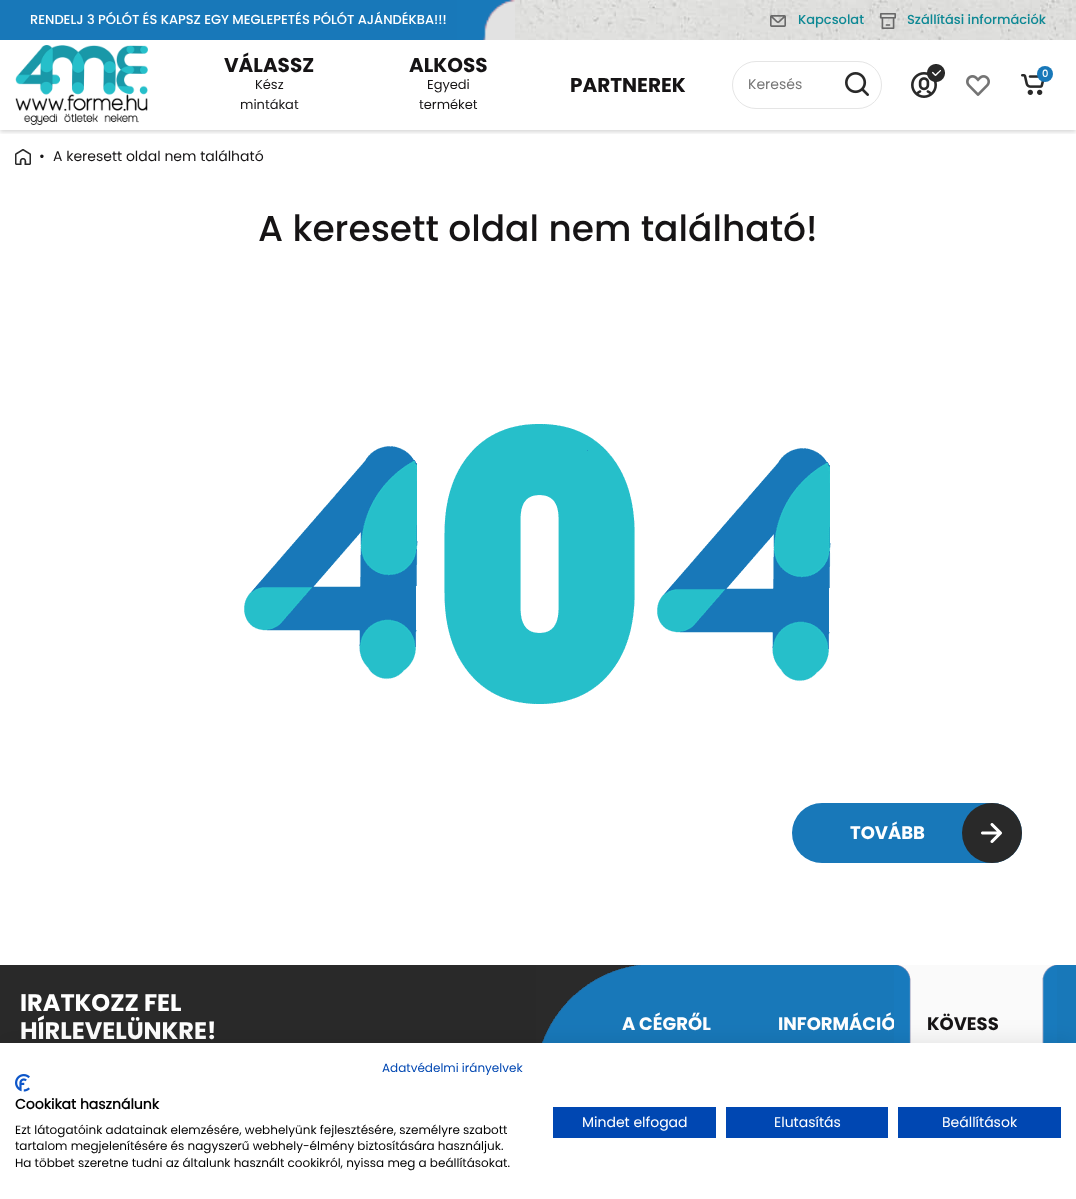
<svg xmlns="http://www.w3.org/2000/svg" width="1076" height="1199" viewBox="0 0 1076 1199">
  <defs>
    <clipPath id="clip1"><rect x="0" y="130" width="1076" height="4"/></clipPath>
    <filter id="blur1" x="-50%" y="-200%" width="200%" height="500%"><feGaussianBlur stdDeviation="2"/></filter>
    <filter id="blur2" x="-50%" y="-200%" width="200%" height="500%"><feGaussianBlur stdDeviation="12"/></filter>
  </defs>
  <rect width="100%" height="100%" fill="#ffffff"/>
  <g clip-path="url(#clip1)">
    <rect x="0" y="42" width="1076" height="90" fill="#000000" fill-opacity="0.16" filter="url(#blur1)"/>
  </g>
  <image x="515" y="0" width="561" height="40" href="img1.png"/>
  <rect x="0" y="0" width="457" height="40" fill="#1878b9"/>
  <text x="30" y="24" font-family="Poppins" font-size="13" font-weight="500" fill="#ffffff">RENDELJ 3 PÓLÓT ÉS KAPSZ EGY MEGLEPETÉS PÓLÓT AJÁNDÉKBA!!!</text>
  <image x="457" y="0" width="58" height="40" href="img2.png"/>
  <image x="770" y="15" width="16" height="12" href="img3.png"/>
  <text x="798" y="24" font-family="Poppins" font-size="13" font-weight="500" fill="#0d8894">Kapcsolat</text>
  <image x="880" y="13" width="16" height="16" href="img4.png"/>
  <text x="907" y="24" font-family="Poppins" font-size="13" font-weight="500" fill="#0d8894">Szállítási információk</text>
  <image x="15" y="45" width="133" height="80" href="img5.png"/>
  <text x="224" y="72" font-family="Poppins" font-size="20" font-weight="bold" fill="#161415">VÁLASSZ</text>
  <text x="255" y="89" font-family="Poppins" font-size="13" fill="#161415">Kész</text>
  <text x="240" y="109" font-family="Poppins" font-size="13" fill="#161415">mintákat</text>
  <text x="409" y="72" font-family="Poppins" font-size="20" font-weight="bold" fill="#161415">ALKOSS</text>
  <text x="427" y="89" font-family="Poppins" font-size="13" fill="#161415">Egyedi</text>
  <text x="419" y="109" font-family="Poppins" font-size="13" fill="#161415">terméket</text>
  <image x="911" y="72" width="26" height="26" href="img7.png"/>
  <image x="927" y="64" width="18" height="18" href="img6.png"/>
  <image x="1021" y="74" width="24" height="21" href="img8.png"/>
  <circle cx="1045" cy="74" r="8" fill="#1878b9"/>
  <text x="1042" y="77" font-family="Poppins" font-size="10" font-weight="500" fill="#ffffff">0</text>
  <image x="966" y="75" width="24" height="21" href="img9.png"/>
  <text x="570" y="92" font-family="Poppins" font-size="20" font-weight="bold" fill="#161415">PARTNEREK</text>
  <rect x="732.5" y="61.5" width="149" height="47" rx="23.5" fill="none" stroke="#e5e5e5"/>
  <text x="748" y="89" font-family="Poppins" font-size="14" fill="#757575">Keresés</text>
  <image x="845" y="72" width="24" height="24" href="img10.png"/>
  <image x="15" y="149" width="16" height="16" href="img11.png"/>
  <text x="39" y="161" font-family="Poppins" font-size="14" fill="#161415">•</text>
  <text x="53" y="161" font-family="Poppins" font-size="14" fill="#161415">A keresett oldal nem található</text>
  <text x="258" y="241" font-family="Poppins" font-size="36" font-weight="500" fill="#161415">A keresett oldal nem található!</text>
  <image x="244" y="424" width="587" height="280" href="img12.png"/>
  <rect x="792" y="803" width="230" height="60" rx="30" fill="#1878b9"/>
  <text x="850" y="839" font-family="Poppins" font-size="18" font-weight="bold" fill="#ffffff">TOVÁBB</text>
  <image x="962" y="803" width="60" height="60" href="img13.png"/>
  <rect x="0" y="965" width="536" height="78" fill="#292929"/>
  <rect x="641" y="965" width="435" height="78" fill="#1878b9"/>
  <text x="20" y="1011" font-family="Poppins" font-size="24" font-weight="bold" fill="#ffffff">IRATKOZZ FEL</text>
  <text x="20" y="1039" font-family="Poppins" font-size="24" font-weight="bold" fill="#ffffff">HÍRLEVELÜNKRE!</text>
  <image x="536" y="965" width="105" height="78" href="img14.png"/>
  <text x="622" y="1030" font-family="Poppins" font-size="18" font-weight="bold" fill="#ffffff">A CÉGRŐL</text>
  <text x="778" y="1030" font-family="Poppins" font-size="18" font-weight="bold" fill="#ffffff">INFORMÁCIÓ</text>
  <image x="894" y="965" width="163" height="78" href="img15.png"/>
  <text x="927" y="1030" font-family="Poppins" font-size="18" font-weight="bold" fill="#161415">KÖVESS</text>
  <rect x="0" y="1043" width="1076" height="156" fill="#000000" fill-opacity="0.1" filter="url(#blur2)"/>
  <rect x="0" y="1043" width="1076" height="156" fill="#ffffff"/>
  <text x="382" y="1072" font-family="Poppins" font-size="12" fill="#0047b2">Adatvédelmi irányelvek</text>
  <image x="15" y="1074" width="15" height="18" href="img16.png"/>
  <text x="15" y="1109" font-family="'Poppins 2'" font-size="14" font-weight="bold" fill="#000000">Cookikat használunk</text>
  <text x="15" y="1134" font-family="Poppins" font-size="12" fill="#000000">Ezt látogatóink adatainak elemzésére, webhelyünk fejlesztésére, személyre szabott</text>
  <text x="15" y="1150" font-family="Poppins" font-size="12" fill="#000000">tartalom megjelenítésére és nagyszerű webhely-élmény biztosítására használjuk.</text>
  <text x="15" y="1167" font-family="Poppins" font-size="12" fill="#000000">Ha többet szeretne tudni az általunk használt cookikról, nyissa meg a beállításokat.</text>
  <rect x="553" y="1107" width="163" height="31" fill="#0047b2"/>
  <text x="582" y="1127" font-family="Poppins" font-size="14" fill="#ffffff">Mindet elfogad</text>
  <rect x="726" y="1107" width="162" height="31" fill="#0047b2"/>
  <text x="774" y="1127" font-family="Poppins" font-size="14" fill="#ffffff">Elutasítás</text>
  <rect x="898" y="1107" width="163" height="31" fill="#0047b2"/>
  <text x="942" y="1127" font-family="Poppins" font-size="14" fill="#ffffff">Beállítások</text>
</svg>
